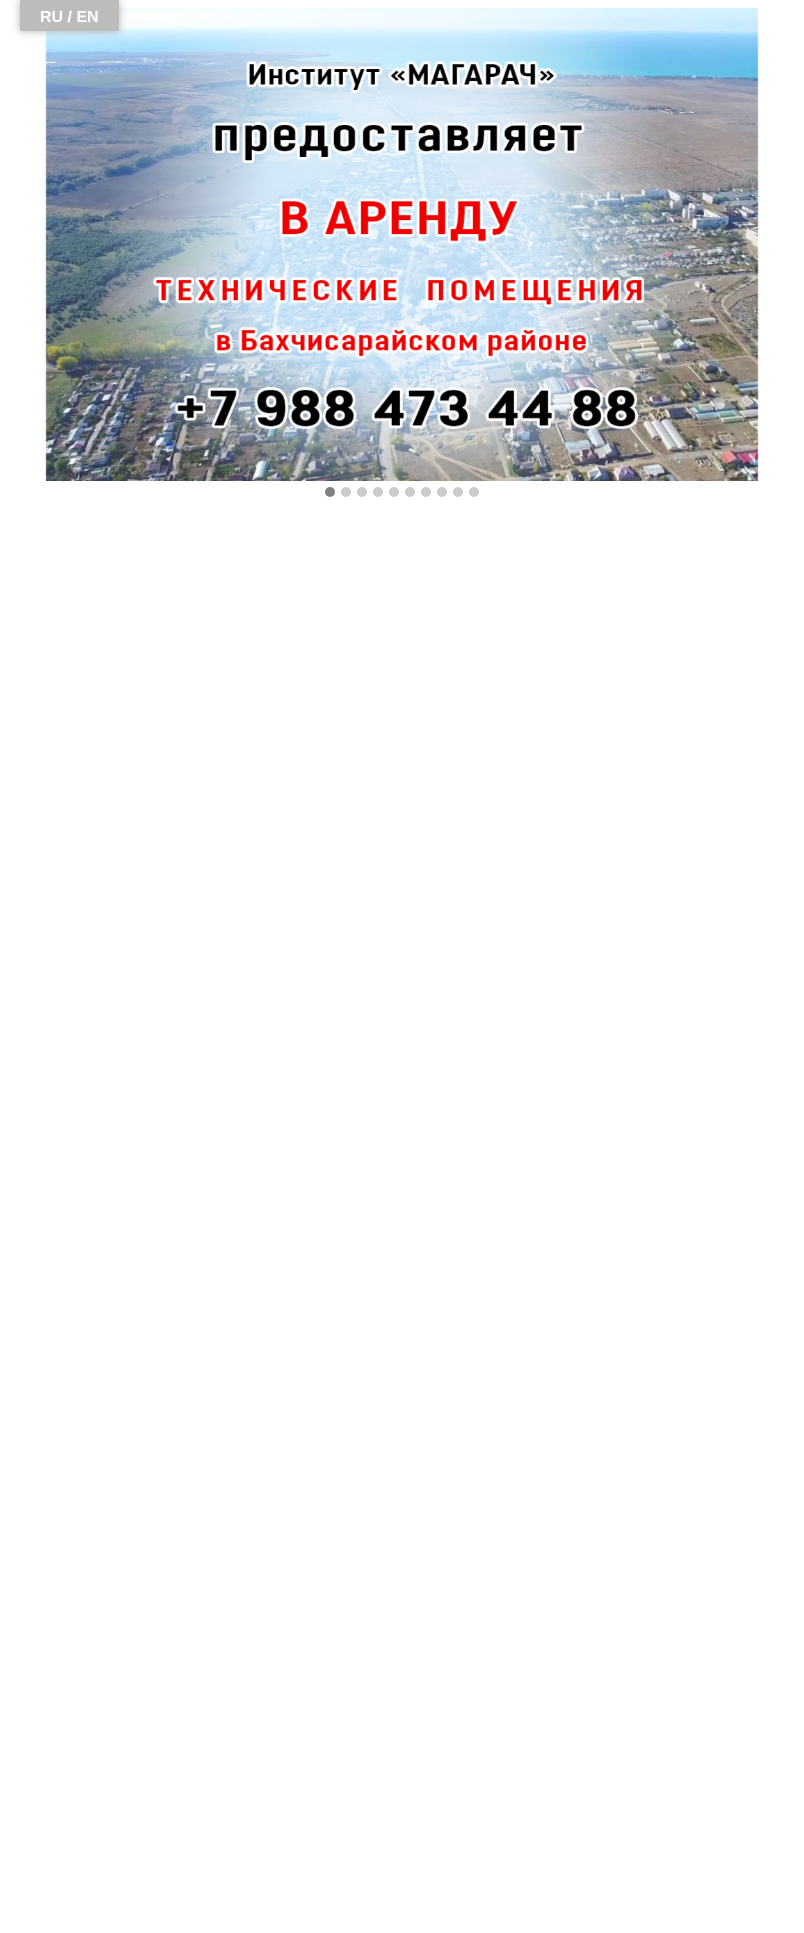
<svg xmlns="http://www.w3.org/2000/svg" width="804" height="1933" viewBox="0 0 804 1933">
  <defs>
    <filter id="blur1" x="-50%" y="-200%" width="200%" height="500%"><feGaussianBlur stdDeviation="4.5"/></filter>
  </defs>
  <rect width="100%" height="100%" fill="#ffffff"/>
  <image x="45" y="8" width="714" height="473" href="img1.png"/>
  <circle cx="330" cy="492" r="5" fill="#808080"/>
  <circle cx="346" cy="492" r="5" fill="#cccccc"/>
  <circle cx="362" cy="492" r="5" fill="#cccccc"/>
  <circle cx="378" cy="492" r="5" fill="#cccccc"/>
  <circle cx="394" cy="492" r="5" fill="#cccccc"/>
  <circle cx="410" cy="492" r="5" fill="#cccccc"/>
  <circle cx="426" cy="492" r="5" fill="#cccccc"/>
  <circle cx="442" cy="492" r="5" fill="#cccccc"/>
  <circle cx="458" cy="492" r="5" fill="#cccccc"/>
  <circle cx="474" cy="492" r="5" fill="#cccccc"/>
  <rect x="20" y="0" width="99" height="31" fill="#000000" fill-opacity="0.3" filter="url(#blur1)"/>
  <rect x="20" y="0" width="99" height="31" fill="#bcbcbc"/>
  <text x="40" y="22" font-family="Liberation Sans" font-size="16" font-weight="bold" fill="#ffffff">RU / EN</text>
</svg>
